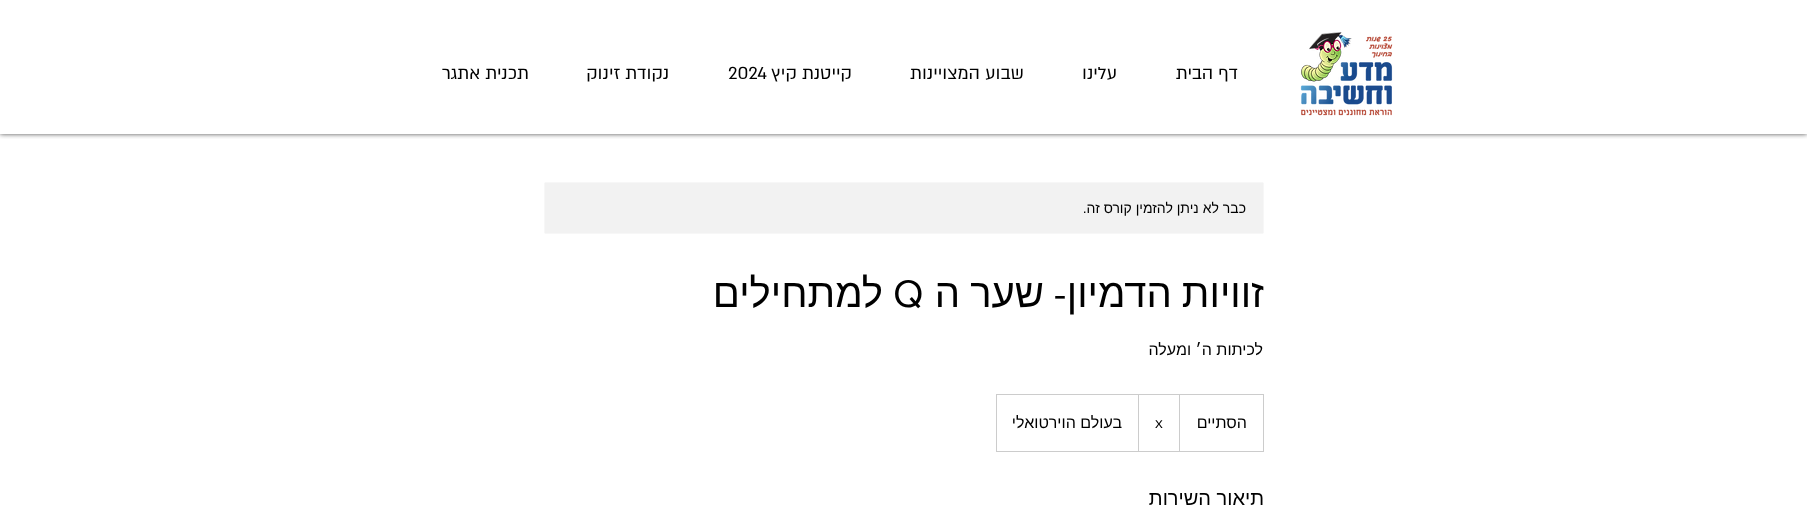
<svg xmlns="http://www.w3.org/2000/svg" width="1807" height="527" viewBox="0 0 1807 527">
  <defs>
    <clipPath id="clip1"><rect x="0" y="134" width="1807" height="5"/></clipPath>
    <filter id="blur1" x="-50%" y="-200%" width="200%" height="500%"><feGaussianBlur stdDeviation="2.5"/></filter>
  </defs>
  <rect width="100%" height="100%" fill="#ffffff"/>
  <g clip-path="url(#clip1)">
    <rect x="0" y="0" width="1807" height="134" fill="#000000" fill-opacity="0.7" filter="url(#blur1)"/>
  </g>
  <image x="1300" y="32" width="93" height="84" href="img1.png"/>
  <text x="1238" y="79" font-family="'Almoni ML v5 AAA'" font-size="20" direction="rtl" fill="#000000">דף הבית</text>
  <text x="1117" y="79" font-family="'Almoni ML v5 AAA'" font-size="20" direction="rtl" fill="#000000">עלינו</text>
  <text x="1024" y="79" font-family="'Almoni ML v5 AAA'" font-size="20" direction="rtl" fill="#000000">שבוע המצויינות</text>
  <text x="852" y="79" font-family="'Almoni ML v5 AAA'" font-size="20" direction="rtl" fill="#000000">קייטנת קיץ</text>
  <text x="728" y="79" font-family="'Almoni ML v5 AAA'" font-size="20" fill="#000000">2024</text>
  <text x="669" y="79" font-family="'Almoni ML v5 AAA'" font-size="20" direction="rtl" fill="#000000">נקודת זינוק</text>
  <text x="529" y="79" font-family="'Almoni ML v5 AAA'" font-size="20" direction="rtl" fill="#000000">תכנית אתגר</text>
  <rect x="544.5" y="182.5" width="719" height="51" rx="1.5" fill="#f2f2f2" stroke="#f7f7f7"/>
  <text x="1246" y="213" font-family="Liberation Sans" font-size="14" direction="rtl" fill="#000000">כבר לא ניתן להזמין קורס זה.</text>
  <text x="1264" y="307" word-spacing="-1" font-family="Liberation Sans" font-size="40" direction="rtl" fill="#000000">זוויות הדמיון</text>
  <text x="1066" y="307" font-family="'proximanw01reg'" font-size="40" direction="rtl" fill="#000000">-</text>
  <text x="1044" y="307" word-spacing="-1" font-family="Liberation Sans" font-size="40" direction="rtl" fill="#000000">שער ה</text>
  <text x="893" y="307" font-family="'proximanw01reg'" font-size="40" fill="#000000">Q</text>
  <text x="883" y="307" font-family="Liberation Sans" font-size="40" direction="rtl" fill="#000000">למתחילים</text>
  <text x="1263" y="355" font-family="Liberation Sans" font-size="16" direction="rtl" fill="#000000">לכיתות ה׳ ומעלה</text>
  <rect x="996.5" y="394.5" width="267" height="57" fill="none" stroke="#cccccc"/>
  <path d="M1179 451V394L1180 395V451Z" fill="#cccccc"/>
  <text x="1247" y="428" font-family="Liberation Sans" font-size="16" direction="rtl" fill="#000000">הסתיים</text>
  <path d="M1138 451V394L1139 395V451Z" fill="#cccccc"/>
  <text x="1155" y="428" font-family="'proximanw01reg'" font-size="16" fill="#000000">x</text>
  <text x="1122" y="428" font-family="Liberation Sans" font-size="16" direction="rtl" fill="#000000">בעולם הוירטואלי</text>
  <text x="1264" y="505" font-family="Liberation Sans" font-size="20" direction="rtl" fill="#000000">תיאור השירות</text>
</svg>
